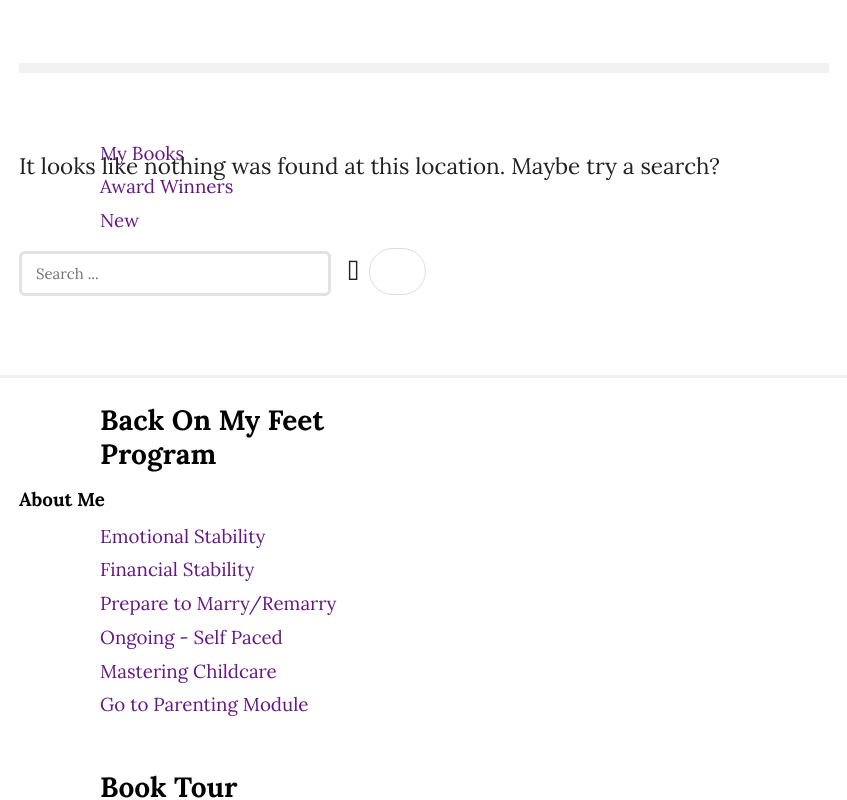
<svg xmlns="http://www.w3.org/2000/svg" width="847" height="800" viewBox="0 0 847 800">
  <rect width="100%" height="100%" fill="#ffffff"/>
  <text x="100" y="160" font-family="Lora" font-size="18.75" fill="#641785">My Books</text>
  <text x="100" y="193" font-family="Lora" font-size="18.75" fill="#641785">Award Winners</text>
  <text x="100" y="227" font-family="Lora" font-size="18.75" fill="#641785">New</text>
  <text x="100" y="430" font-family="Lora" font-size="28" font-weight="bold" fill="#000000">Back On My Feet</text>
  <text x="100" y="464" font-family="Lora" font-size="28" font-weight="bold" fill="#000000">Program</text>
  <text x="100" y="543" font-family="Lora" font-size="18.75" fill="#641785">Emotional Stability</text>
  <text x="100" y="576" font-family="Lora" font-size="18.75" fill="#641785">Financial Stability</text>
  <text x="100" y="610" font-family="Lora" font-size="18.75" fill="#641785">Prepare to Marry/Remarry</text>
  <text x="100" y="644" font-family="Lora" font-size="18.75" fill="#641785">Ongoing - Self Paced</text>
  <text x="100" y="678" font-family="Lora" font-size="18.75" fill="#641785">Mastering Childcare</text>
  <text x="100" y="711" font-family="Lora" font-size="18.75" fill="#641785">Go to Parenting Module</text>
  <text x="100" y="797" font-family="Lora" font-size="28" font-weight="bold" fill="#000000">Book Tour</text>
  <rect x="19" y="63" width="810" height="10" fill="#f2f2f2"/>
  <text x="19" y="174" font-family="Lora" font-size="22.5" fill="#222222">It looks like nothing was found at this location. Maybe try a search?</text>
  <rect x="20.5" y="252.5" width="309" height="42" rx="4.5" fill="none" stroke="#e2e2e2" stroke-width="3"/>
  <text x="36" y="279" font-family="Lora" font-size="15" fill="#757575">Search ...</text>
  <image x="348" y="260" width="10" height="20" href="img1.png"/>
  <rect x="369.5" y="248.5" width="56" height="46" rx="23" fill="none" stroke="#dddddd"/>
  <rect x="0" y="375" width="847" height="3" fill="#efefef"/>
  <text x="19" y="506" font-family="Lora" font-size="18.75" font-weight="bold" fill="#000000">About Me</text>
</svg>
